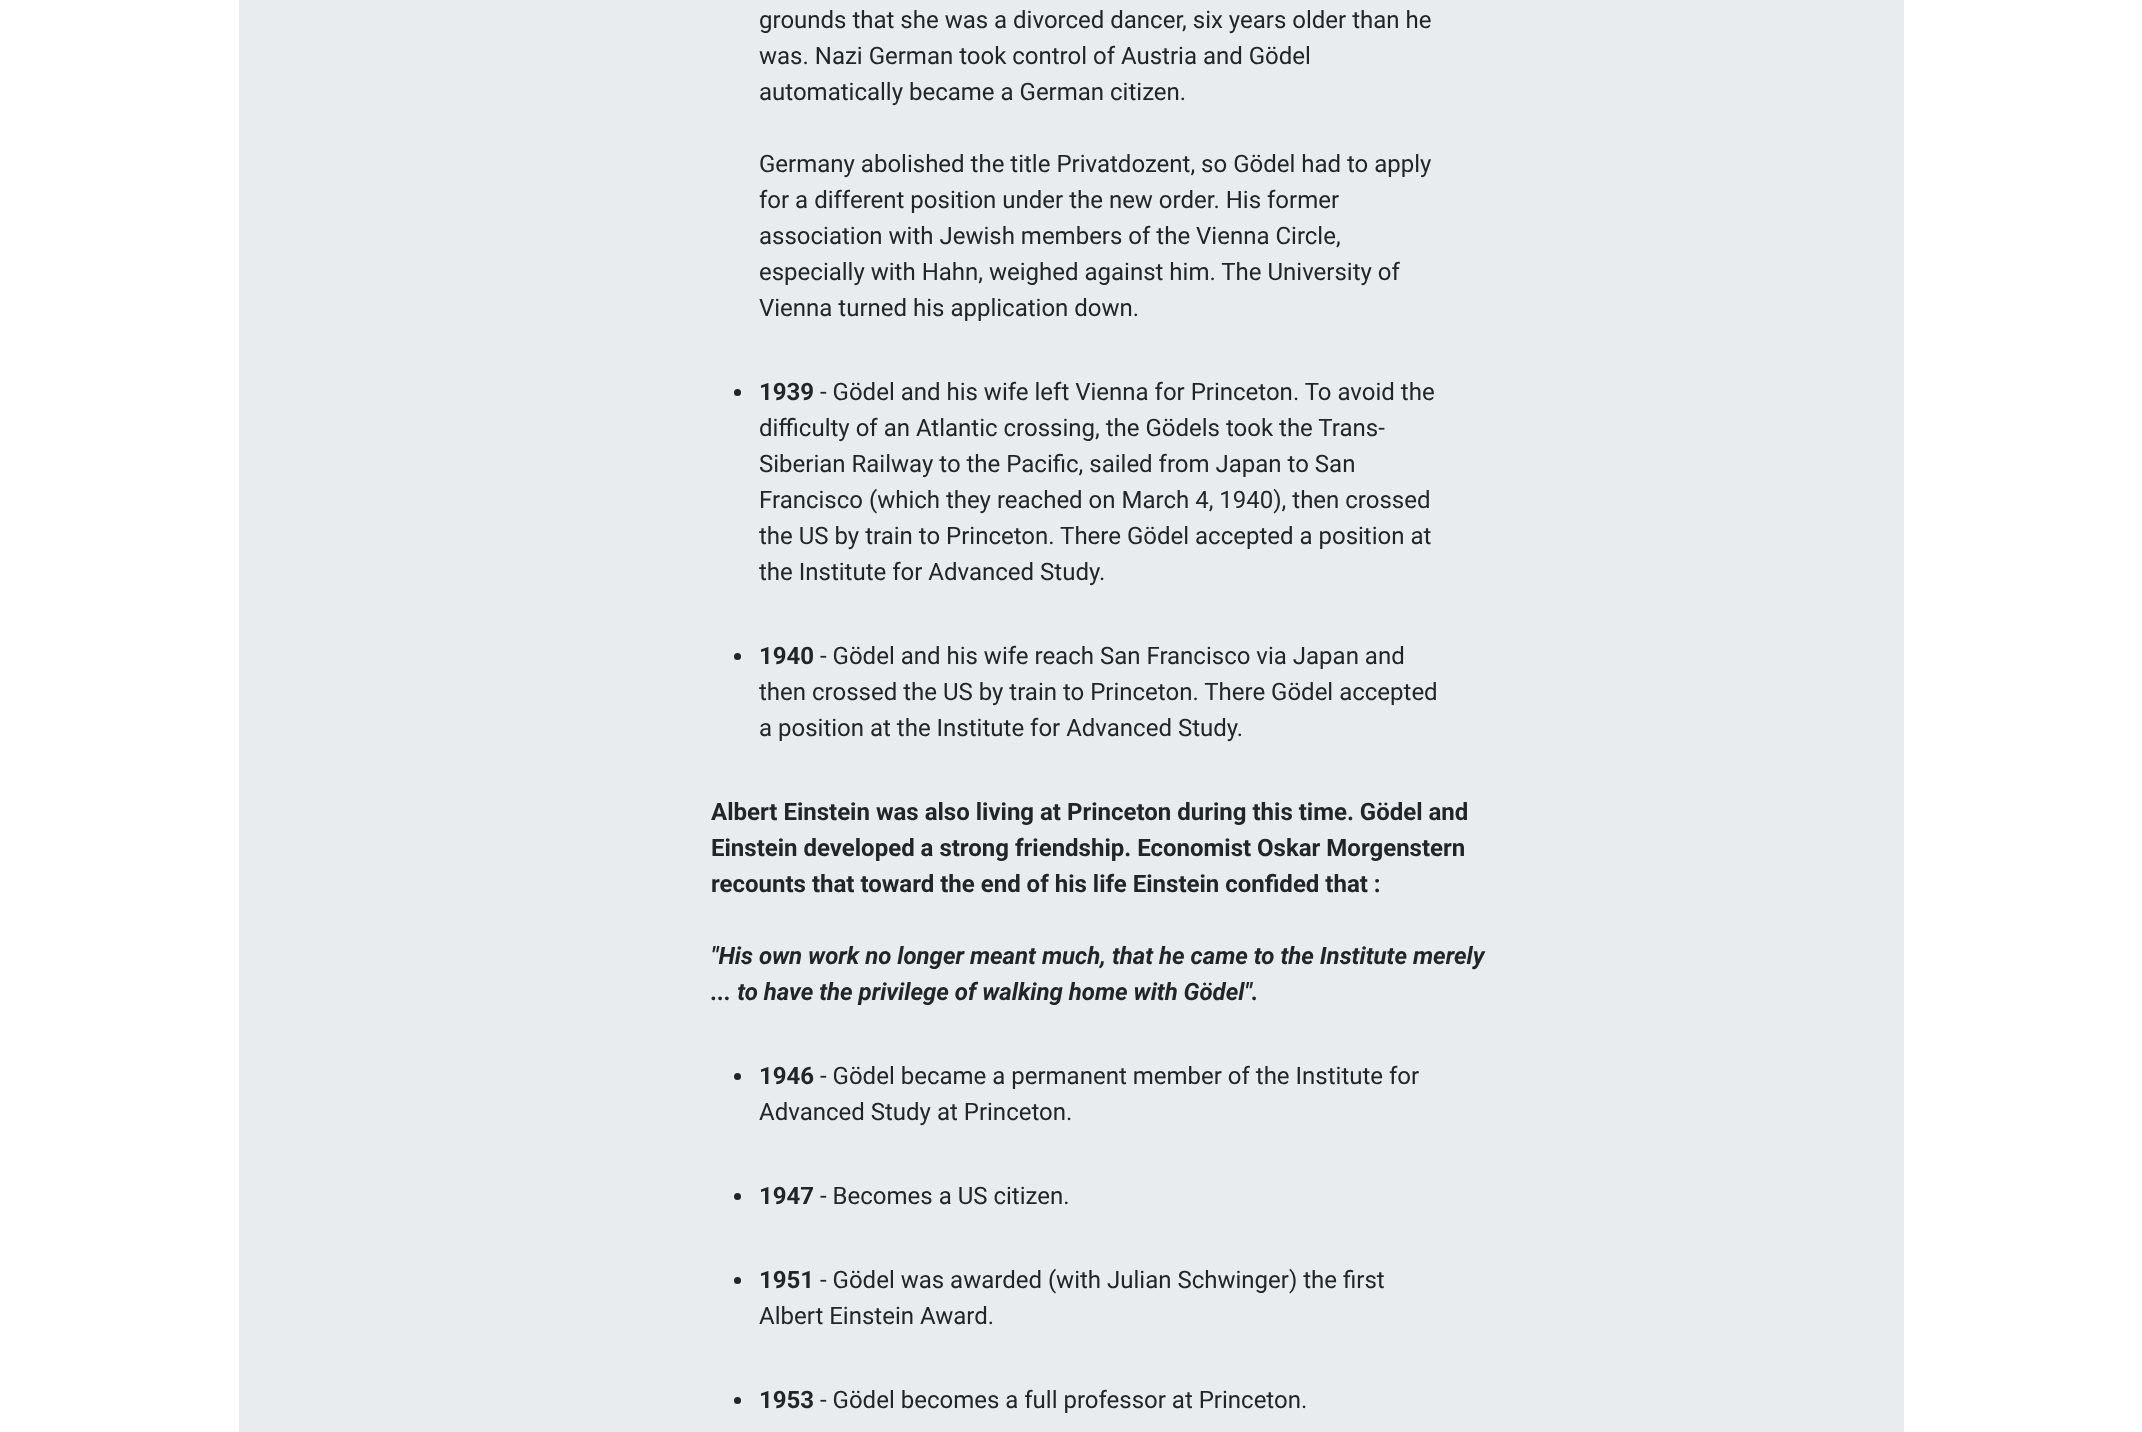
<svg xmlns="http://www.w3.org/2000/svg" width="2142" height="1432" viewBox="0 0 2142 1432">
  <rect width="100%" height="100%" fill="#ffffff"/>
  <rect x="239" y="0" width="1665" height="1432" fill="#e9ecef"/>
  <text x="759" y="28" font-family="Roboto" font-size="24" fill="#212529">grounds that she was a divorced dancer, six years older than he</text>
  <text x="759" y="64" font-family="Roboto" font-size="24" fill="#212529">was. Nazi German took control of Austria and Gödel</text>
  <text x="759" y="100" font-family="Roboto" font-size="24" fill="#212529">automatically became a German citizen.</text>
  <text x="759" y="172" font-family="Roboto" font-size="24" fill="#212529">Germany abolished the title Privatdozent, so Gödel had to apply</text>
  <text x="759" y="208" font-family="Roboto" font-size="24" fill="#212529">for a different position under the new order. His former</text>
  <text x="759" y="244" font-family="Roboto" font-size="24" fill="#212529">association with Jewish members of the Vienna Circle,</text>
  <text x="759" y="280" font-family="Roboto" font-size="24" fill="#212529">especially with Hahn, weighed against him. The University of</text>
  <text x="759" y="316" font-family="Roboto" font-size="24" fill="#212529">Vienna turned his application down.</text>
  <circle cx="737.5" cy="392.5" r="3.5" fill="#212529"/>
  <text x="759" y="400" font-family="Roboto" font-size="24" font-weight="bold" fill="#212529">1939</text>
  <text x="820" y="400" font-family="Roboto" font-size="24" fill="#212529">- Gödel and his wife left Vienna for Princeton. To avoid the</text>
  <text x="759" y="436" font-family="Roboto" font-size="24" fill="#212529">difficulty of an Atlantic crossing, the Gödels took the Trans-</text>
  <text x="759" y="472" font-family="Roboto" font-size="24" fill="#212529">Siberian Railway to the Pacific, sailed from Japan to San</text>
  <text x="759" y="508" font-family="Roboto" font-size="24" fill="#212529">Francisco (which they reached on March 4, 1940), then crossed</text>
  <text x="759" y="544" font-family="Roboto" font-size="24" fill="#212529">the US by train to Princeton. There Gödel accepted a position at</text>
  <text x="759" y="580" font-family="Roboto" font-size="24" fill="#212529">the Institute for Advanced Study.</text>
  <circle cx="737.5" cy="656.5" r="3.5" fill="#212529"/>
  <text x="759" y="664" font-family="Roboto" font-size="24" font-weight="bold" fill="#212529">1940</text>
  <text x="820" y="664" font-family="Roboto" font-size="24" fill="#212529">- Gödel and his wife reach San Francisco via Japan and</text>
  <text x="759" y="700" font-family="Roboto" font-size="24" fill="#212529">then crossed the US by train to Princeton. There Gödel accepted</text>
  <text x="759" y="736" font-family="Roboto" font-size="24" fill="#212529">a position at the Institute for Advanced Study.</text>
  <text x="711" y="820" font-family="Roboto" font-size="24" font-weight="bold" fill="#212529">Albert Einstein was also living at Princeton during this time. Gödel and</text>
  <text x="711" y="856" font-family="Roboto" font-size="24" font-weight="bold" fill="#212529">Einstein developed a strong friendship. Economist Oskar Morgenstern</text>
  <text x="711" y="892" font-family="Roboto" font-size="24" font-weight="bold" fill="#212529">recounts that toward the end of his life Einstein confided that :</text>
  <text x="711" y="964" font-family="Roboto" font-size="24" font-weight="bold" font-style="italic" fill="#212529">"His own work no longer meant much, that he came to the Institute merely</text>
  <text x="711" y="1000" font-family="Roboto" font-size="24" font-weight="bold" font-style="italic" fill="#212529">... to have the privilege of walking home with Gödel".</text>
  <circle cx="737.5" cy="1076.5" r="3.5" fill="#212529"/>
  <text x="759" y="1084" font-family="Roboto" font-size="24" font-weight="bold" fill="#212529">1946</text>
  <text x="820" y="1084" font-family="Roboto" font-size="24" fill="#212529">- Gödel became a permanent member of the Institute for</text>
  <text x="759" y="1120" font-family="Roboto" font-size="24" fill="#212529">Advanced Study at Princeton.</text>
  <circle cx="737.5" cy="1196.5" r="3.5" fill="#212529"/>
  <text x="759" y="1204" font-family="Roboto" font-size="24" font-weight="bold" fill="#212529">1947</text>
  <text x="820" y="1204" font-family="Roboto" font-size="24" fill="#212529">- Becomes a US citizen.</text>
  <circle cx="737.5" cy="1280.5" r="3.5" fill="#212529"/>
  <text x="759" y="1288" font-family="Roboto" font-size="24" font-weight="bold" fill="#212529">1951</text>
  <text x="820" y="1288" font-family="Roboto" font-size="24" fill="#212529">- Gödel was awarded (with Julian Schwinger) the first</text>
  <text x="759" y="1324" font-family="Roboto" font-size="24" fill="#212529">Albert Einstein Award.</text>
  <circle cx="737.5" cy="1400.5" r="3.5" fill="#212529"/>
  <text x="759" y="1408" font-family="Roboto" font-size="24" font-weight="bold" fill="#212529">1953</text>
  <text x="820" y="1408" font-family="Roboto" font-size="24" fill="#212529">- Gödel becomes a full professor at Princeton.</text>
</svg>
